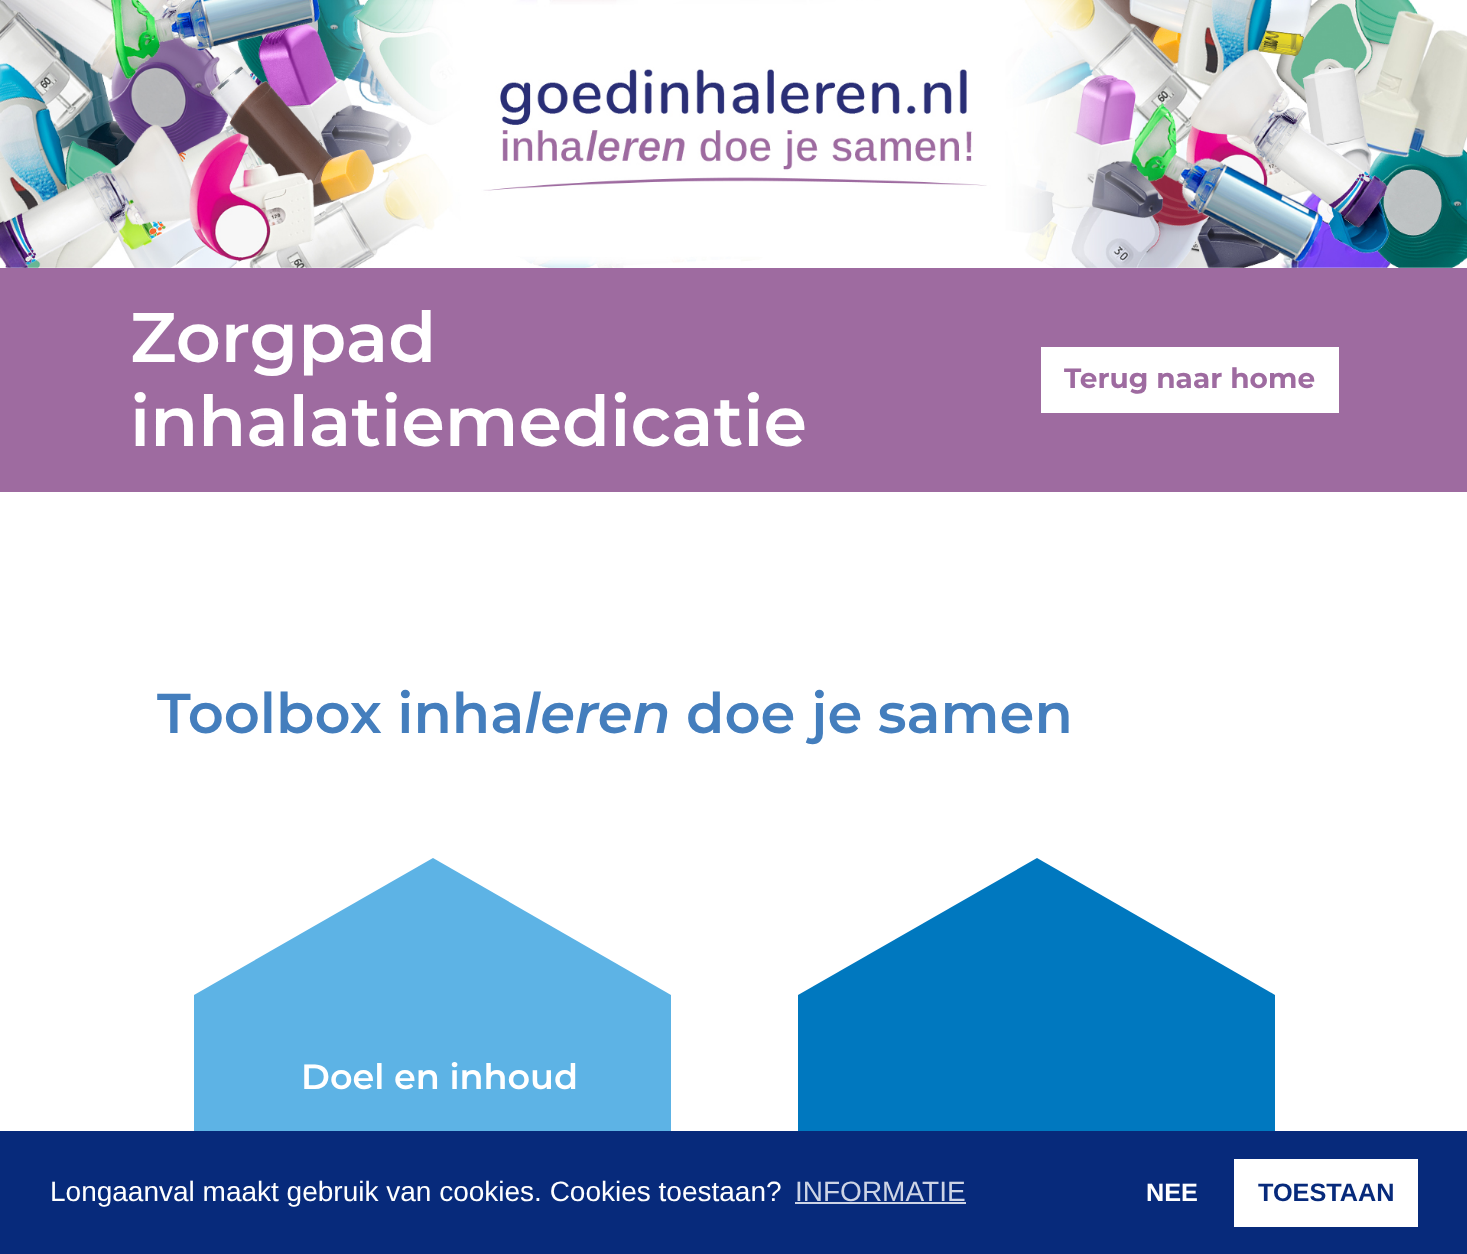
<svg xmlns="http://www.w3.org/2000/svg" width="1467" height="1254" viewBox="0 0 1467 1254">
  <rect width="100%" height="100%" fill="#ffffff"/>
  <image x="0" y="0" width="1467" height="268" href="img1.png"/>
  <rect x="0" y="268" width="1467" height="224" fill="#9e6ba0"/>
  <text x="130" y="362" font-family="Montserrat" font-size="70" font-weight="600" fill="#ffffff">Zorgpad</text>
  <text x="130" y="446" font-family="Montserrat" font-size="70" font-weight="600" fill="#ffffff">inhalatiemedicatie</text>
  <rect x="1041" y="347" width="298" height="66" fill="#ffffff"/>
  <text x="1064" y="388" font-family="Montserrat" font-size="28" font-weight="bold" fill="#9e6ba0">Terug naar home</text>
  <text x="157" y="733" font-family="Montserrat" font-size="56" font-weight="600" fill="#447ebd">Toolbox inha</text>
  <text x="524" y="733" font-family="Montserrat" font-size="56" font-weight="600" font-style="italic" fill="#447ebd">leren</text>
  <text x="686" y="733" font-family="Montserrat" font-size="56" font-weight="600" fill="#447ebd">doe je samen</text>
  <path d="M431 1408L194 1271V995L433 858L671 995V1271L435 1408Z" fill="#5db3e5"/>
  <text x="301" y="1089" font-family="Montserrat" font-size="35" font-weight="600" fill="#ffffff">Doel en inhoud</text>
  <path d="M1035 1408L798 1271V995L1037 858L1275 995V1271L1039 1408Z" fill="#0078bf"/>
  <rect x="0" y="1131" width="1467" height="123" fill="#072a7b"/>
  <text x="50" y="1201" font-family="Liberation Sans" font-size="28" fill="#ffffff">Longaanval maakt gebruik van cookies. Cookies toestaan?</text>
  <text x="795" y="1201" font-family="Liberation Sans" font-size="28" fill="#cdd4e5">INFORMATIE</text>
  <rect x="795" y="1202" width="171" height="2" fill="#cdd4e5"/>
  <text x="1146" y="1201" font-family="Liberation Sans" font-size="25.25" font-weight="bold" fill="#ffffff">NEE</text>
  <rect x="1234" y="1159" width="184" height="68" fill="#ffffff"/>
  <text x="1258" y="1201" font-family="Liberation Sans" font-size="25.25" font-weight="bold" fill="#072a7b">TOESTAAN</text>
</svg>
